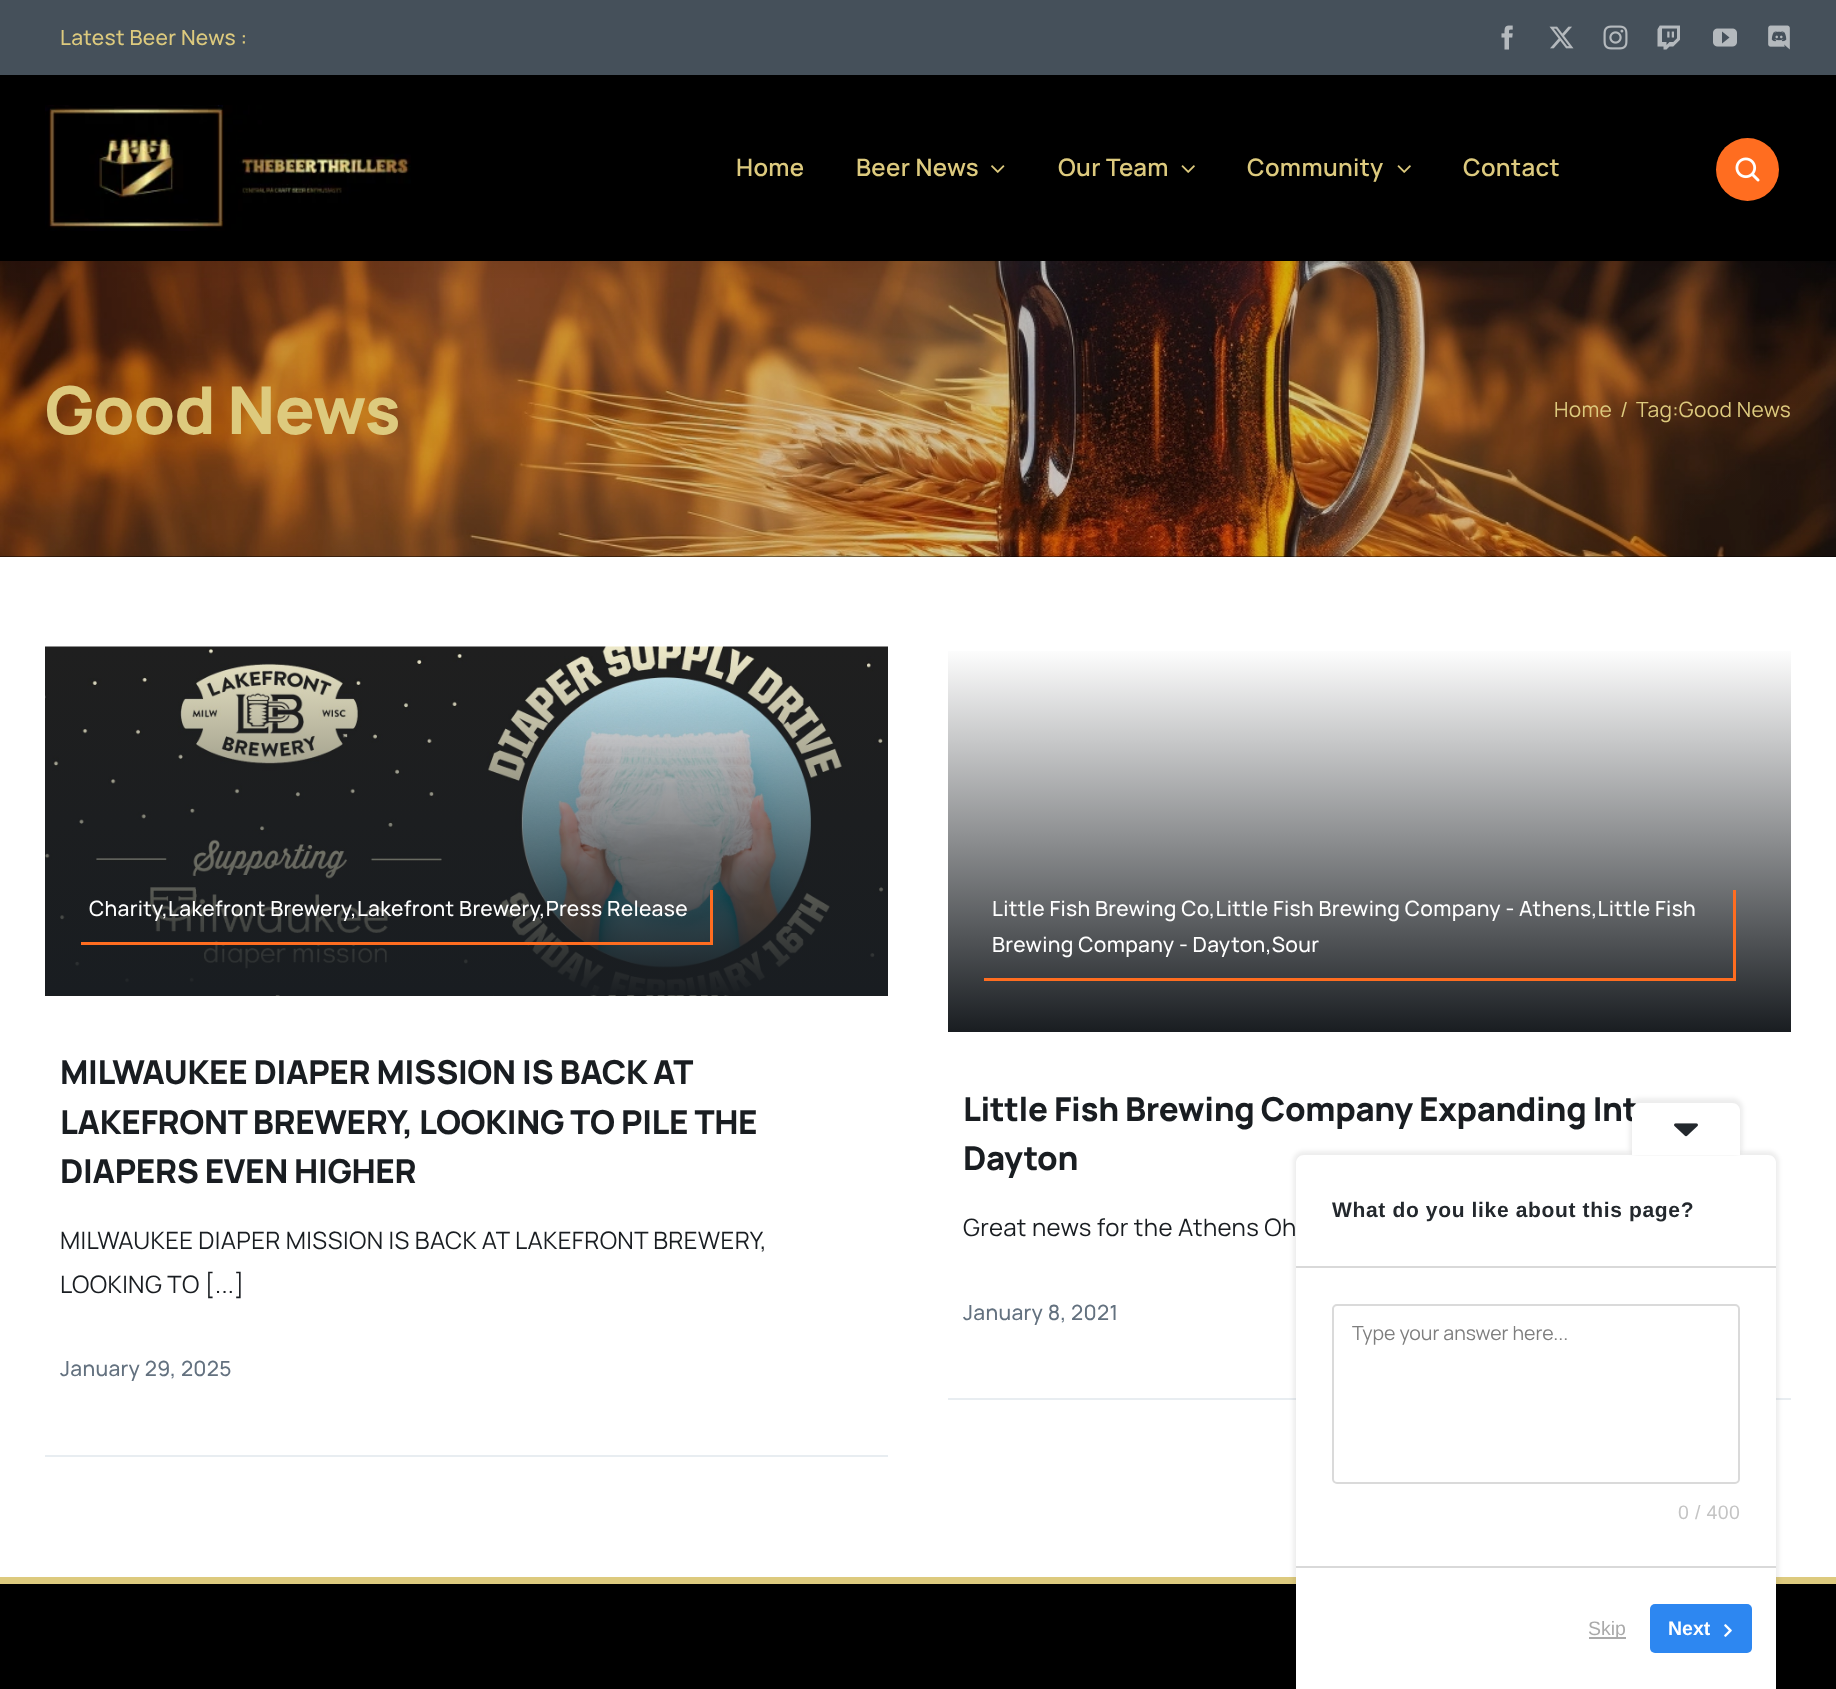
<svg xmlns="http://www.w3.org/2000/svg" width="1836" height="1689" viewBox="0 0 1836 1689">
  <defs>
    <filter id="blur1" x="-50%" y="-200%" width="200%" height="500%"><feGaussianBlur stdDeviation="7.5"/></filter>
    <linearGradient id="g1" gradientUnits="userSpaceOnUse" x1="1370" y1="647" x2="1370" y2="1032"><stop offset="0" stop-color="#ffffff"/><stop offset="1" stop-color="#191d21"/></linearGradient>
    <filter id="blur2" x="-50%" y="-200%" width="200%" height="500%"><feGaussianBlur stdDeviation="2"/></filter>
    <clipPath id="clip1"><path d="M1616 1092.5H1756L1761.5 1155.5H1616Z"/></clipPath>
  </defs>
  <rect width="100%" height="100%" fill="#ffffff"/>
  <rect x="0" y="556" width="1836" height="1" fill="#000000"/>
  <image x="0" y="261" width="1836" height="296" href="img11.png"/>
  <rect x="8" y="83" width="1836" height="186" fill="#020303" fill-opacity="0.05" filter="url(#blur1)"/>
  <rect x="0" y="0" width="1836" height="75" fill="#45505a"/>
  <text x="60" y="45" font-family="Manrope" font-size="21" font-weight="500" letter-spacing="0.32" fill="#ddca7e">Latest Beer News :</text>
  <image x="1501" y="25" width="12" height="25" href="img1.png"/>
  <image x="1549" y="26" width="25" height="23" href="img2.png"/>
  <image x="1603" y="25" width="25" height="25" href="img3.png"/>
  <image x="1657" y="25" width="23" height="25" href="img4.png"/>
  <image x="1713" y="28" width="24" height="19" href="img5.png"/>
  <image x="1768" y="25" width="22" height="25" href="img6.png"/>
  <rect x="0" y="75" width="1836" height="186" fill="#000000"/>
  <image x="45" y="105" width="366" height="126" href="img7.png"/>
  <text x="736" y="176" font-family="Manrope" font-size="24" font-weight="600" letter-spacing="0.35" fill="#ddca7e">Home</text>
  <text x="856" y="176" font-family="Manrope" font-size="24" font-weight="600" letter-spacing="0.35" fill="#ddca7e">Beer News</text>
  <image x="991" y="165" width="14" height="8" href="img8.png"/>
  <text x="1058" y="176" font-family="Manrope" font-size="24" font-weight="600" letter-spacing="0.35" fill="#ddca7e">Our Team</text>
  <image x="1181" y="165" width="14" height="8" href="img9.png"/>
  <text x="1247" y="176" font-family="Manrope" font-size="24" font-weight="600" letter-spacing="0.35" fill="#ddca7e">Community</text>
  <image x="1397" y="165" width="14" height="8" href="img9.png"/>
  <text x="1463" y="176" font-family="Manrope" font-size="24" font-weight="600" letter-spacing="0.35" fill="#ddca7e">Contact</text>
  <circle cx="1747.5" cy="169.5" r="31.5" fill="#ff6d20"/>
  <image x="1735" y="157" width="25" height="25" href="img10.png"/>
  <text x="45" y="434" font-family="Manrope" font-size="66" font-weight="800" letter-spacing="-0.75" fill="#ddca7e">Good News</text>
  <text x="1554" y="417" font-family="Manrope" font-size="21" letter-spacing="0.35" fill="#ddca7e">Home</text>
  <text x="1620" y="417" font-family="Manrope" font-size="21" letter-spacing="0.35" fill="#ddca7e">/</text>
  <text x="1636" y="417" font-family="Manrope" font-size="21" letter-spacing="0.35" fill="#ddca7e">Tag:Good News</text>
  <rect x="45" y="1455" width="843" height="2" fill="#e8edf1"/>
  <image x="45" y="646" width="843" height="350" href="img12.png"/>
  <rect x="710" y="890" width="3" height="55" fill="#ff6d20"/>
  <rect x="81" y="942" width="632" height="3" fill="#ff6d20"/>
  <text x="89" y="916" font-family="Manrope" font-size="21" font-weight="500" letter-spacing="0.32" fill="#ffffff">Charity,Lakefront Brewery,Lakefront Brewery,Press Release</text>
  <text x="60" y="1084" font-family="Manrope" font-size="33" font-weight="800" letter-spacing="-0.35" fill="#191d21">MILWAUKEE DIAPER MISSION IS BACK AT</text>
  <text x="60" y="1134" font-family="Manrope" font-size="33" font-weight="800" letter-spacing="-0.35" fill="#191d21">LAKEFRONT BREWERY, LOOKING TO PILE THE</text>
  <text x="60" y="1183" font-family="Manrope" font-size="33" font-weight="800" letter-spacing="-0.35" fill="#191d21">DIAPERS EVEN HIGHER</text>
  <text x="60" y="1249" font-family="Manrope" font-size="24" letter-spacing="0.35" fill="#191d21">MILWAUKEE DIAPER MISSION IS BACK AT LAKEFRONT BREWERY,</text>
  <text x="60" y="1293" font-family="Manrope" font-size="24" letter-spacing="0.35" fill="#191d21">LOOKING TO [...]</text>
  <text x="60" y="1376" font-family="Manrope" font-size="21" font-weight="500" letter-spacing="0.32" fill="#63717f">January 29, 2025</text>
  <rect x="948" y="1398" width="843" height="2" fill="#e8edf1"/>
  <rect x="948" y="651" width="843" height="381" fill="url(#g1)"/>
  <rect x="1733" y="890" width="3" height="91" fill="#ff6d20"/>
  <rect x="984" y="978" width="752" height="3" fill="#ff6d20"/>
  <text x="992" y="916" font-family="Manrope" font-size="21" font-weight="500" letter-spacing="0.32" fill="#ffffff">Little Fish Brewing Co,Little Fish Brewing Company - Athens,Little Fish</text>
  <text x="992" y="952" font-family="Manrope" font-size="21" font-weight="500" letter-spacing="0.32" fill="#ffffff">Brewing Company - Dayton,Sour</text>
  <text x="963" y="1121" font-family="Manrope" font-size="33" font-weight="800" letter-spacing="-0.35" fill="#191d21">Little Fish Brewing Company Expanding Int</text>
  <text x="963" y="1170" font-family="Manrope" font-size="33" font-weight="800" letter-spacing="-0.35" fill="#191d21">Dayton</text>
  <text x="963" y="1236" font-family="Manrope" font-size="24" letter-spacing="0.35" fill="#191d21">Great news for the Athens Oh</text>
  <text x="963" y="1320" font-family="Manrope" font-size="21" font-weight="500" letter-spacing="0.32" fill="#63717f">January 8, 2021</text>
  <rect x="0" y="1584" width="1836" height="105" fill="#000000"/>
  <rect x="0" y="1577" width="1836" height="7" fill="#ddca7e"/>
  <rect x="1293" y="1151" width="486" height="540" rx="11" fill="#000000" fill-opacity="0.07" filter="url(#blur2)"/>
  <path d="M1304 1155H1768C1772.5 1155 1776 1158.5 1776 1163V1689H1296V1163C1296 1158.5 1299.5 1155 1304 1155Z" fill="#ffffff"/>
  <g clip-path="url(#clip1)">
    <rect x="1629" y="1098" width="114" height="59" rx="11" fill="#000000" fill-opacity="0.07" filter="url(#blur2)"/>
  </g>
  <path d="M1640 1103H1732C1736.5 1103 1740 1106.5 1740 1111V1155H1632V1111C1632 1106.5 1635.5 1103 1640 1103Z" fill="#ffffff"/>
  <image x="1674" y="1123" width="24" height="14" href="img13.png"/>
  <text x="1332" y="1217" font-family="Liberation Sans" font-size="21" font-weight="bold" letter-spacing="0.65" fill="#23282d">What do you like about this page?</text>
  <rect x="1296" y="1266" width="480" height="2" fill="#d9d9d9"/>
  <rect x="1296" y="1566" width="480" height="2" fill="#d9d9d9"/>
  <rect x="1333" y="1305" width="406" height="178" rx="4" fill="none" stroke="#dadada" stroke-width="2"/>
  <text x="1352" y="1340" font-family="Manrope" font-size="19.5" fill="#7e7e7e">Type your answer here...</text>
  <text x="1678" y="1519" font-family="Liberation Sans" font-size="19.5" letter-spacing="0.35" fill="#c4c4c4">0 / 400</text>
  <rect x="1589" y="1637" width="37" height="2" fill="#aaaaaa"/>
  <text x="1588" y="1635" font-family="Liberation Sans" font-size="19.5" fill="#aaaaaa">Skip</text>
  <rect x="1650" y="1604" width="102" height="49" rx="5" fill="#2d87f1"/>
  <text x="1668" y="1635" font-family="Liberation Sans" font-size="19.5" font-weight="bold" fill="#ffffff">Next</text>
  <image x="1724" y="1624" width="8" height="13" href="img14.png"/>
</svg>
